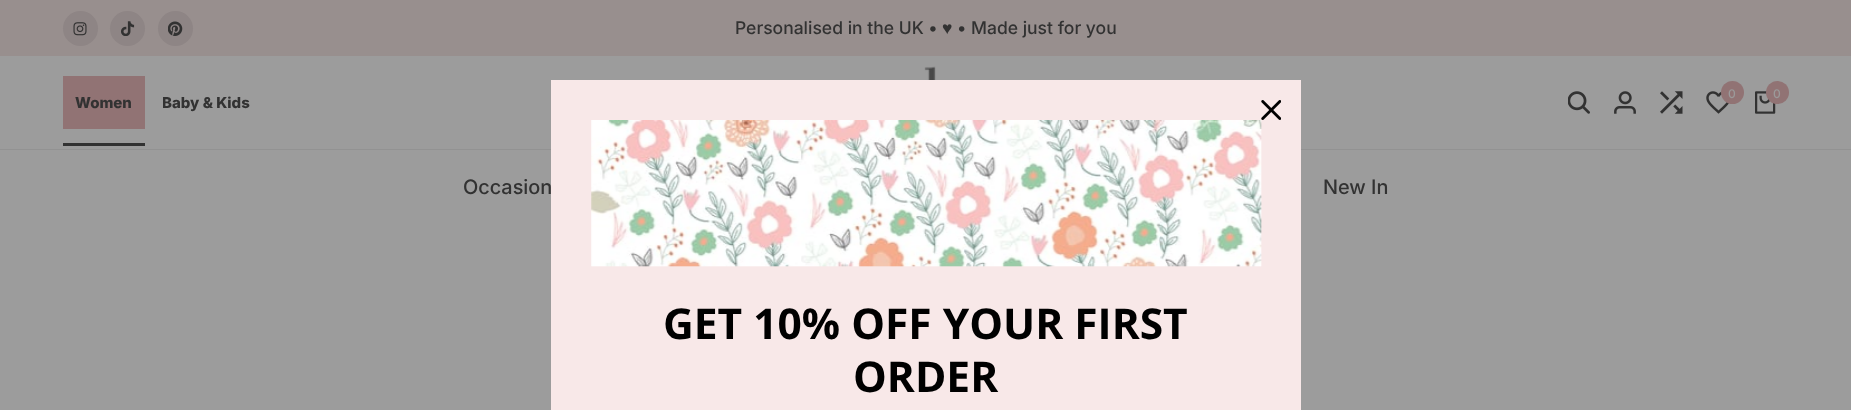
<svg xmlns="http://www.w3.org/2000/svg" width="1851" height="410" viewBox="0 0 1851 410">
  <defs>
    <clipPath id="clip1"><rect x="163" y="90" width="87" height="25"/></clipPath>
  </defs>
  <rect width="100%" height="100%" fill="#9c9c9c"/>
  <rect x="0" y="0" width="1851" height="56" fill="#988f8e"/>
  <circle cx="80.5" cy="28.5" r="17.5" fill="#8e8585"/>
  <image x="73" y="22" width="14" height="14" href="img1.png"/>
  <circle cx="127.5" cy="28.5" r="17.5" fill="#8e8585"/>
  <image x="121" y="21" width="14" height="15" href="img2.png"/>
  <circle cx="175.5" cy="28.5" r="17.5" fill="#8e8585"/>
  <image x="168" y="21" width="15" height="15" href="img3.png"/>
  <text x="735" y="34" font-family="'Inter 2'" font-size="17.5" font-weight="500" fill="#323232">Personalised in the UK •</text>
  <text x="942" y="34" font-family="Liberation Sans" font-size="17.5" fill="#323232">♥</text>
  <text x="957" y="34" font-family="'Inter 2'" font-size="17.5" font-weight="500" fill="#323232">• Made just for you</text>
  <image x="924" y="66" width="12" height="14" href="img4.png"/>
  <image x="1568" y="91" width="22" height="23" href="img5.png"/>
  <image x="1614" y="91" width="22" height="23" href="img6.png"/>
  <image x="1660" y="91" width="23" height="23" href="img7.png"/>
  <image x="1706" y="91" width="23" height="23" href="img8.png"/>
  <circle cx="1732.5" cy="92.5" r="11.5" fill="#917374"/>
  <text x="1728" y="98" font-family="'Inter 2'" font-size="12" font-weight="500" fill="#9b9a9a">0</text>
  <image x="1755" y="91" width="21" height="23" href="img9.png"/>
  <circle cx="1777.5" cy="92.5" r="11.5" fill="#917374"/>
  <text x="1773" y="98" font-family="'Inter 2'" font-size="12" font-weight="500" fill="#9b9a9a">0</text>
  <rect x="63" y="76" width="82" height="53" fill="#917374"/>
  <text x="75" y="108" font-family="Inter" font-size="15" font-weight="800" fill="#323232">Women</text>
  <rect x="63" y="143" width="82" height="3" fill="#323232"/>
  <g clip-path="url(#clip1)">
    <text x="162" y="108" font-family="Inter" font-size="15" font-weight="800" fill="#323232">Baby &amp; Kids</text>
  </g>
  <rect x="0" y="149" width="1851" height="1" fill="#929292"/>
  <text x="463" y="194" font-family="Inter" font-size="20" font-weight="500" fill="#323232">Occasion</text>
  <text x="1323" y="194" font-family="Inter" font-size="20" font-weight="500" fill="#323232">New In</text>
  <rect x="551" y="80" width="750" height="330" fill="#f8e8e8"/>
  <image x="1261" y="100" width="20" height="20" href="img10.png"/>
  <image x="591" y="120" width="671" height="147" href="img11.png"/>
  <text x="663" y="339" font-family="Open Sans" font-size="42.5" font-weight="bold" fill="#000000">GET 10% OFF YOUR FIRST</text>
  <text x="853" y="392" font-family="Open Sans" font-size="42.5" font-weight="bold" fill="#000000">ORDER</text>
</svg>
